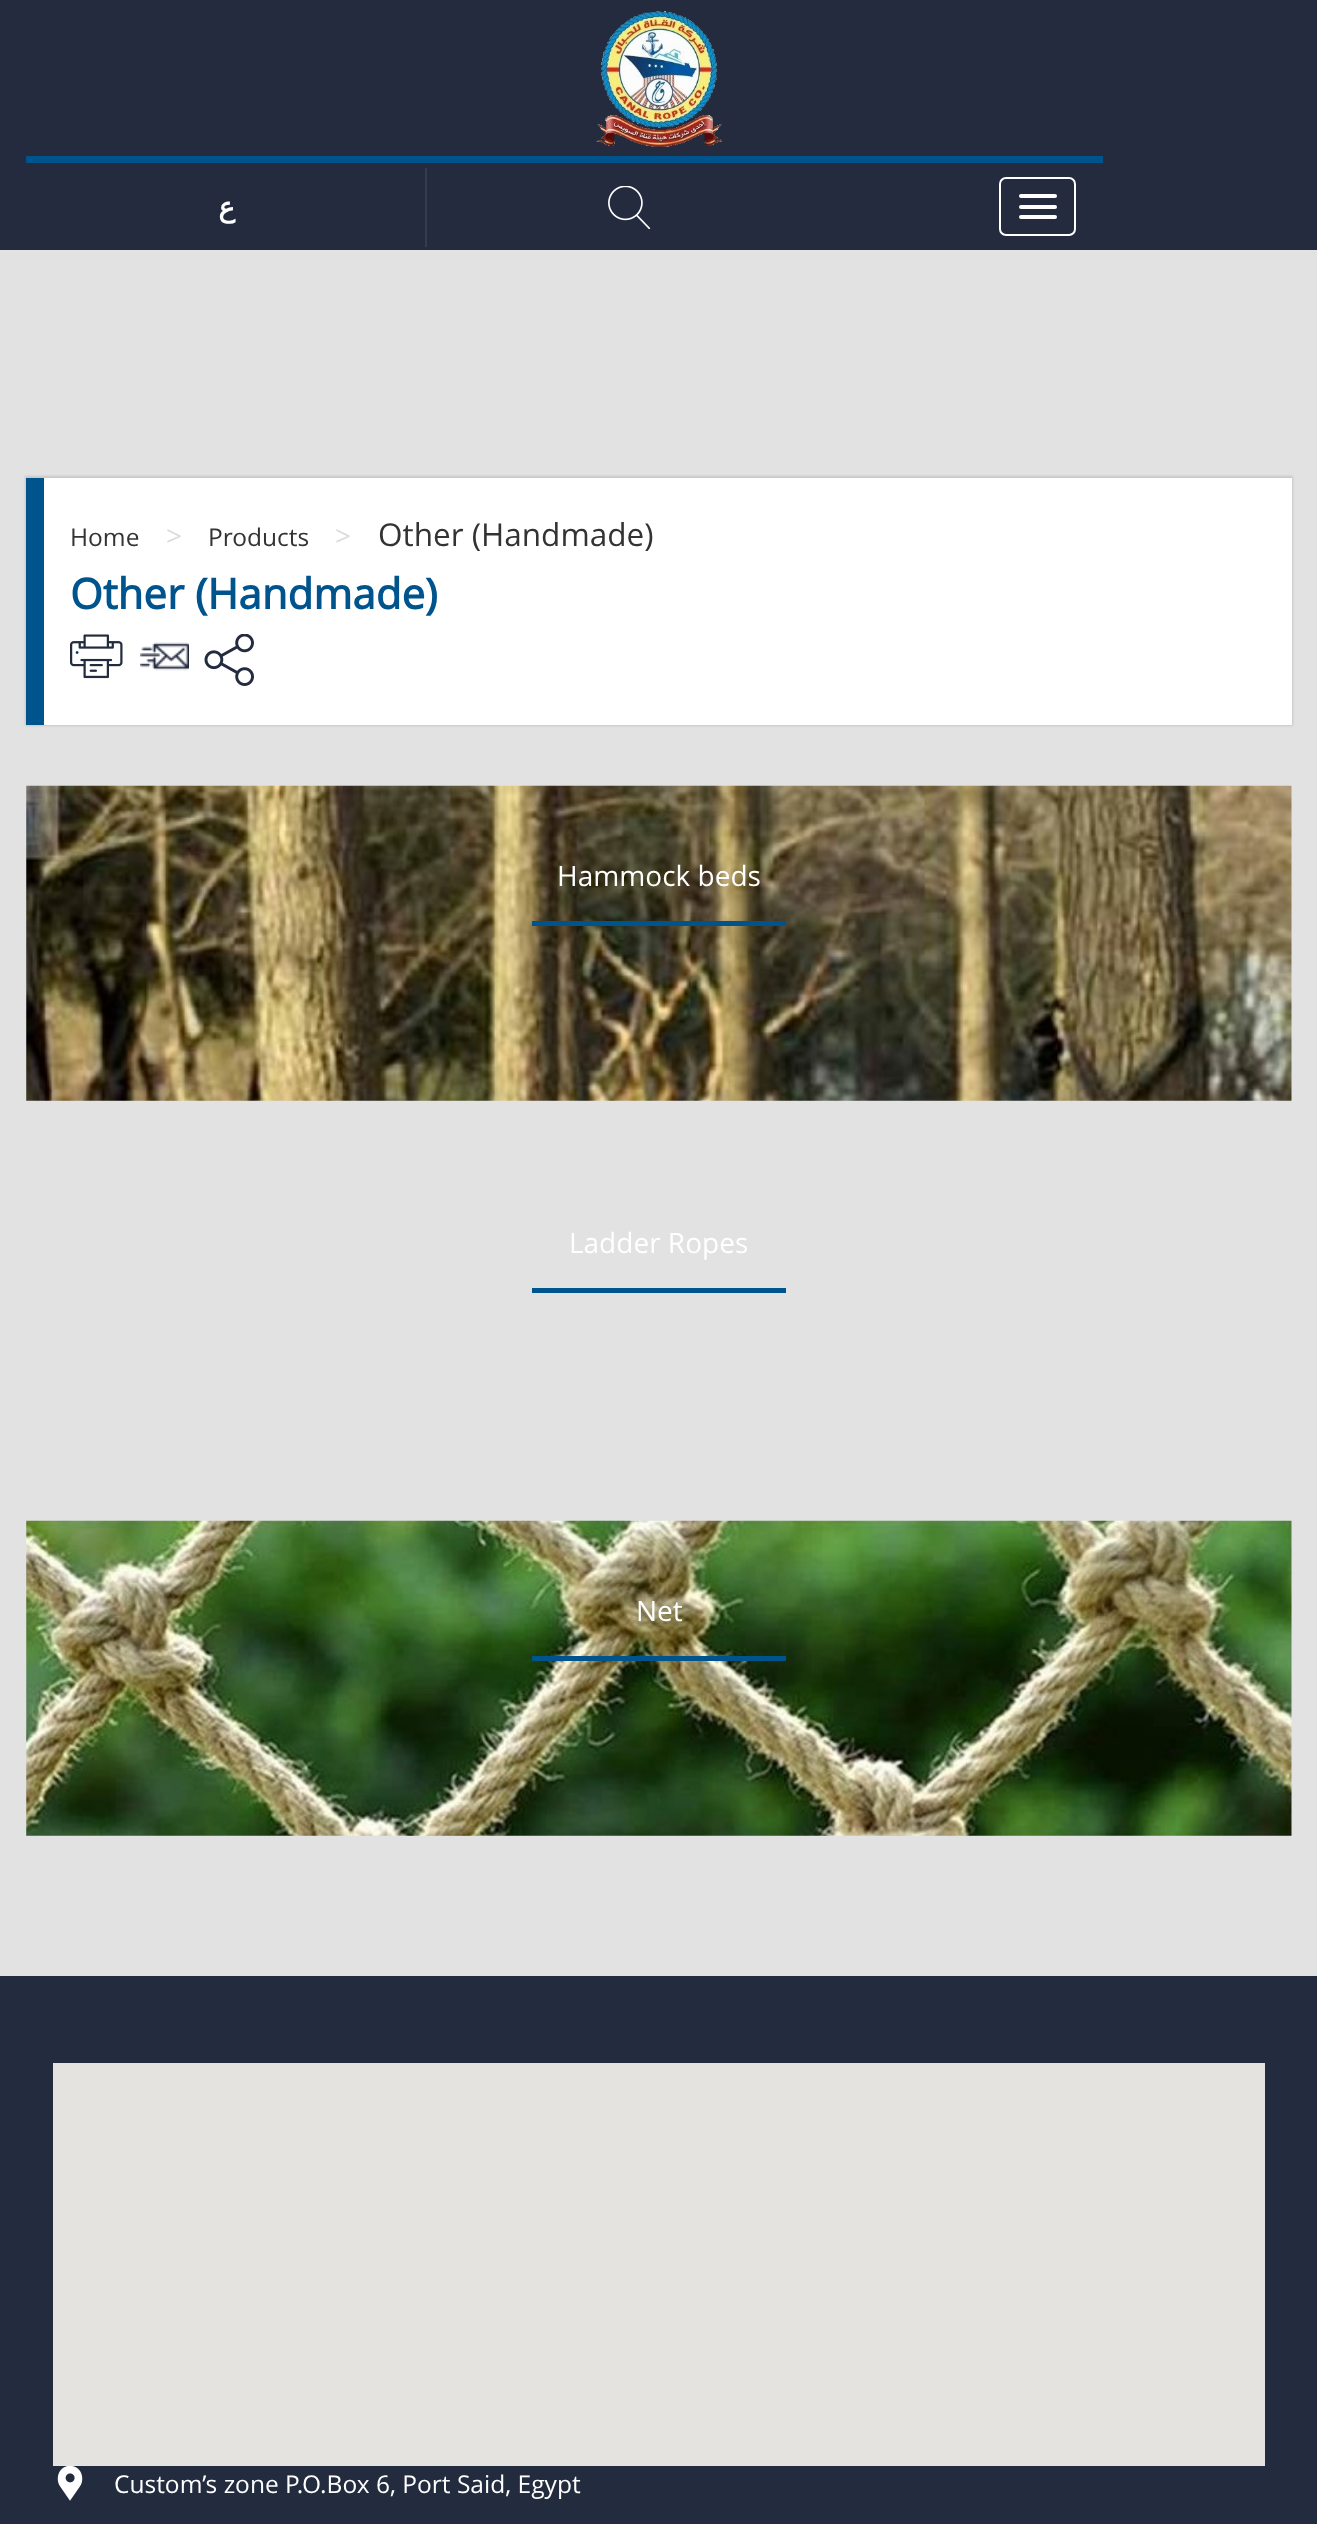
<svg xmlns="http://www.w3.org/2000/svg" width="1317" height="2524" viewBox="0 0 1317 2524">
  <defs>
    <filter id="blur1" x="-50%" y="-200%" width="200%" height="500%"><feGaussianBlur stdDeviation="1"/></filter>
  </defs>
  <rect width="100%" height="100%" fill="#e2e2e2"/>
  <rect x="0" y="0" width="1317" height="250" fill="#242b3e"/>
  <image x="596" y="11" width="126" height="136" href="img1.png"/>
  <rect x="26" y="156" width="1077" height="7" fill="#00548e"/>
  <rect x="425" y="168" width="2" height="79" fill="#353c50"/>
  <text x="235" y="217" font-family="DejaVu Sans" font-size="28" font-weight="bold" direction="rtl" fill="#ffffff">ع</text>
  <image x="608" y="186" width="43" height="43" href="img2.png"/>
  <rect x="1000" y="178" width="75" height="57" rx="6" fill="none" stroke="#ffffff" stroke-width="2"/>
  <rect x="1019" y="194" width="38" height="4" rx="2" fill="#ffffff"/>
  <rect x="1019" y="205" width="38" height="4" rx="2" fill="#ffffff"/>
  <rect x="1019" y="215" width="38" height="4" rx="2" fill="#ffffff"/>
  <rect x="25" y="476" width="1268" height="250" fill="#c7c7c7" filter="url(#blur1)"/>
  <rect x="44" y="478" width="1248" height="247" fill="#ffffff"/>
  <rect x="26" y="478" width="18" height="247" fill="#00548e"/>
  <text x="70" y="546" font-family="Open Sans" font-size="24.5" fill="#333333">Home</text>
  <text x="166" y="546" font-family="Open Sans" font-size="28" fill="#dcdcdc">&gt;</text>
  <text x="208" y="546" font-family="Open Sans" font-size="24.5" fill="#333333">Products</text>
  <text x="335" y="546" font-family="Open Sans" font-size="28" fill="#dcdcdc">&gt;</text>
  <text x="378" y="546" font-family="Open Sans" font-size="31.5" fill="#333333">Other (Handmade)</text>
  <text x="70" y="609" font-family="Open Sans" font-size="42" font-weight="bold" fill="#00548e">Other (Handmade)</text>
  <image x="70" y="634" width="53" height="45" href="img3.png"/>
  <image x="140" y="642" width="49" height="29" href="img4.png"/>
  <image x="204" y="634" width="50" height="52" href="img5.png"/>
  <image x="26" y="785" width="1266" height="316" href="img6.png"/>
  <text x="557" y="886" font-family="Open Sans" font-size="28" fill="#ffffff">Hammock beds</text>
  <rect x="532" y="921" width="254" height="5" fill="#00548e"/>
  <text x="569" y="1253" font-family="Open Sans" font-size="28" fill="#ffffff">Ladder Ropes</text>
  <rect x="532" y="1288" width="254" height="5" fill="#00548e"/>
  <image x="26" y="1520" width="1266" height="316" href="img7.png"/>
  <text x="636" y="1621" font-family="Open Sans" font-size="28" fill="#ffffff">Net</text>
  <rect x="532" y="1656" width="254" height="5" fill="#00548e"/>
  <rect x="0" y="1976" width="1317" height="548" fill="#232b3e"/>
  <rect x="53" y="2063" width="1212" height="403" fill="#e5e3df"/>
  <image x="57" y="2466" width="26" height="35" href="img8.png"/>
  <text x="114" y="2493" font-family="Open Sans" font-size="24.5" fill="#ffffff">Custom’s zone P.O.Box 6, Port Said, Egypt</text>
</svg>
